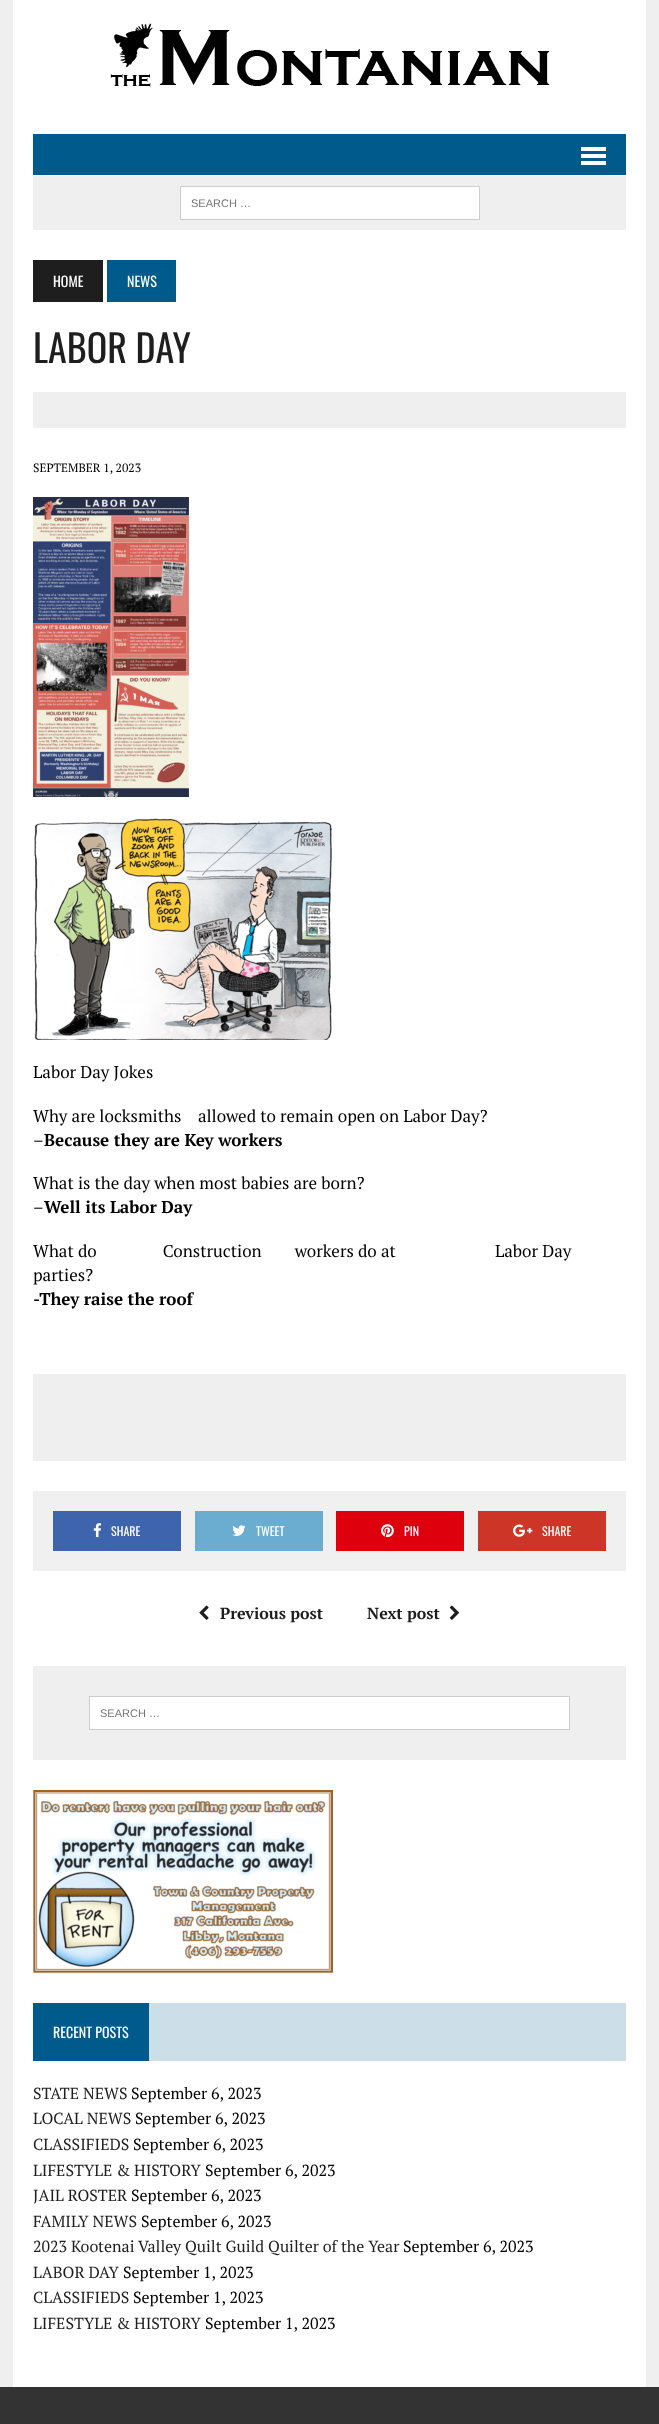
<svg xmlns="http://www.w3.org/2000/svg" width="659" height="2424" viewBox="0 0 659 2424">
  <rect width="100%" height="100%" fill="#efefef"/>
  <rect x="13" y="0" width="633" height="2387" fill="#ffffff"/>
  <image x="110" y="23" width="440" height="64" href="img1.png"/>
  <rect x="33" y="134" width="593" height="41" fill="#005a8c"/>
  <rect x="581" y="147" width="25" height="4" fill="#ffffff"/>
  <rect x="581" y="154" width="25" height="4" fill="#ffffff"/>
  <rect x="581" y="161" width="25" height="4" fill="#ffffff"/>
  <rect x="33" y="176" width="593" height="54" fill="#efefef"/>
  <rect x="180.5" y="186.5" width="299" height="33" fill="#ffffff" stroke="#cdcdcd"/>
  <text x="191" y="207" font-family="Liberation Sans" font-size="11" fill="#757575">SEARCH …</text>
  <rect x="33" y="260" width="70" height="42" fill="#1f1e1e"/>
  <text x="53" y="287" font-family="Oswald" font-size="14" fill="#ffffff">HOME</text>
  <rect x="107" y="260" width="69" height="42" fill="#005a8c"/>
  <text x="127" y="287" font-family="Oswald" font-size="14" fill="#ffffff">NEWS</text>
  <text x="33" y="363" font-family="Oswald" font-size="38" fill="#1f1e1e">LABOR DAY</text>
  <rect x="33" y="392" width="593" height="36" fill="#efefef"/>
  <text x="33" y="472" font-family="PT Serif" font-size="12" fill="#000000">SEPTEMBER 1, 2023</text>
  <image x="33" y="497" width="156" height="300" href="img2.png"/>
  <image x="34" y="817" width="298" height="223" href="img3.png"/>
  <text x="33" y="1078" font-family="PT Serif" font-size="17" fill="#000000">Labor Day Jokes</text>
  <text x="33" y="1122" font-family="PT Serif" font-size="17" fill="#000000" xml:space="preserve">Why are locksmiths    allowed to remain open on Labor Day?</text>
  <text x="33" y="1146" font-family="PT Serif" font-size="17" fill="#000000">–</text>
  <text x="44" y="1146" font-family="PT Serif" font-size="17" font-weight="bold" fill="#000000">Because they are Key workers</text>
  <text x="33" y="1189" font-family="PT Serif" font-size="17" fill="#000000">What is the day when most babies are born?</text>
  <text x="33" y="1213" font-family="PT Serif" font-size="17" fill="#000000">–</text>
  <text x="44" y="1213" font-family="PT Serif" font-size="17" font-weight="bold" fill="#000000">Well its Labor Day</text>
  <text x="33" y="1257" font-family="PT Serif" font-size="17" fill="#000000" xml:space="preserve">What do                Construction        workers do at                        Labor Day</text>
  <text x="33" y="1281" font-family="PT Serif" font-size="17" fill="#000000">parties?</text>
  <text x="33" y="1305" font-family="PT Serif" font-size="17" font-weight="bold" fill="#000000">-They raise the roof</text>
  <rect x="33" y="1374" width="593" height="87" fill="#efefef"/>
  <rect x="33" y="1491" width="593" height="80" fill="#f0f0f0"/>
  <rect x="53" y="1511" width="128" height="40" fill="#3e64ad"/>
  <image x="93" y="1523" width="9" height="15" href="img4.png"/>
  <text x="111" y="1536" font-family="Oswald" font-size="12" fill="#ffffff">SHARE</text>
  <rect x="195" y="1511" width="128" height="40" fill="#6aadd1"/>
  <image x="232" y="1525" width="14" height="11" href="img5.png"/>
  <text x="256" y="1536" font-family="Oswald" font-size="12" fill="#ffffff">TWEET</text>
  <rect x="336" y="1511" width="128" height="40" fill="#de010d"/>
  <image x="381" y="1524" width="13" height="14" href="img6.png"/>
  <text x="404" y="1536" font-family="Oswald" font-size="12" fill="#ffffff">PIN</text>
  <rect x="478" y="1511" width="128" height="40" fill="#cd3627"/>
  <image x="513" y="1524" width="20" height="13" href="img7.png"/>
  <text x="542" y="1536" font-family="Oswald" font-size="12" fill="#ffffff">SHARE</text>
  <image x="199" y="1605" width="10" height="15" href="img8.png"/>
  <text x="220" y="1619" font-family="PT Serif" font-size="16" font-weight="bold" fill="#1f1e1e">Previous post</text>
  <text x="367" y="1619" font-family="PT Serif" font-size="16" font-weight="bold" fill="#1f1e1e">Next post</text>
  <image x="449" y="1605" width="10" height="15" href="img9.png"/>
  <rect x="33" y="1666" width="593" height="94" fill="#efefef"/>
  <rect x="89.5" y="1696.5" width="480" height="33" fill="#ffffff" stroke="#cdcdcd"/>
  <text x="100" y="1717" font-family="Liberation Sans" font-size="11" fill="#757575">SEARCH …</text>
  <image x="33" y="1790" width="300" height="183" href="img10.png"/>
  <rect x="149" y="2003" width="477" height="58" fill="#ccdee8"/>
  <rect x="33" y="2003" width="116" height="58" fill="#005a8c"/>
  <text x="53" y="2038" font-family="Oswald" font-size="14" fill="#ffffff">RECENT POSTS</text>
  <text x="33" y="2099" font-family="PT Serif" font-size="16" fill="#1f1e1e">STATE NEWS</text>
  <text x="131" y="2099" font-family="PT Serif" font-size="16" fill="#000000">September 6, 2023</text>
  <text x="33" y="2124" font-family="PT Serif" font-size="16" fill="#1f1e1e">LOCAL NEWS</text>
  <text x="135" y="2124" font-family="PT Serif" font-size="16" fill="#000000">September 6, 2023</text>
  <text x="33" y="2150" font-family="PT Serif" font-size="16" fill="#1f1e1e">CLASSIFIEDS</text>
  <text x="133" y="2150" font-family="PT Serif" font-size="16" fill="#000000">September 6, 2023</text>
  <text x="33" y="2176" font-family="PT Serif" font-size="16" fill="#1f1e1e">LIFESTYLE &amp; HISTORY</text>
  <text x="205" y="2176" font-family="PT Serif" font-size="16" fill="#000000">September 6, 2023</text>
  <text x="33" y="2201" font-family="PT Serif" font-size="16" fill="#1f1e1e">JAIL ROSTER</text>
  <text x="131" y="2201" font-family="PT Serif" font-size="16" fill="#000000">September 6, 2023</text>
  <text x="33" y="2227" font-family="PT Serif" font-size="16" fill="#1f1e1e">FAMILY NEWS</text>
  <text x="141" y="2227" font-family="PT Serif" font-size="16" fill="#000000">September 6, 2023</text>
  <text x="33" y="2252" font-family="PT Serif" font-size="16" fill="#1f1e1e">2023 Kootenai Valley Quilt Guild Quilter of the Year</text>
  <text x="403" y="2252" font-family="PT Serif" font-size="16" fill="#000000">September 6, 2023</text>
  <text x="33" y="2278" font-family="PT Serif" font-size="16" fill="#1f1e1e">LABOR DAY</text>
  <text x="123" y="2278" font-family="PT Serif" font-size="16" fill="#000000">September 1, 2023</text>
  <text x="33" y="2303" font-family="PT Serif" font-size="16" fill="#1f1e1e">CLASSIFIEDS</text>
  <text x="133" y="2303" font-family="PT Serif" font-size="16" fill="#000000">September 1, 2023</text>
  <text x="33" y="2329" font-family="PT Serif" font-size="16" fill="#1f1e1e">LIFESTYLE &amp; HISTORY</text>
  <text x="205" y="2329" font-family="PT Serif" font-size="16" fill="#000000">September 1, 2023</text>
  <rect x="0" y="2387" width="659" height="37" fill="#333333"/>
</svg>
